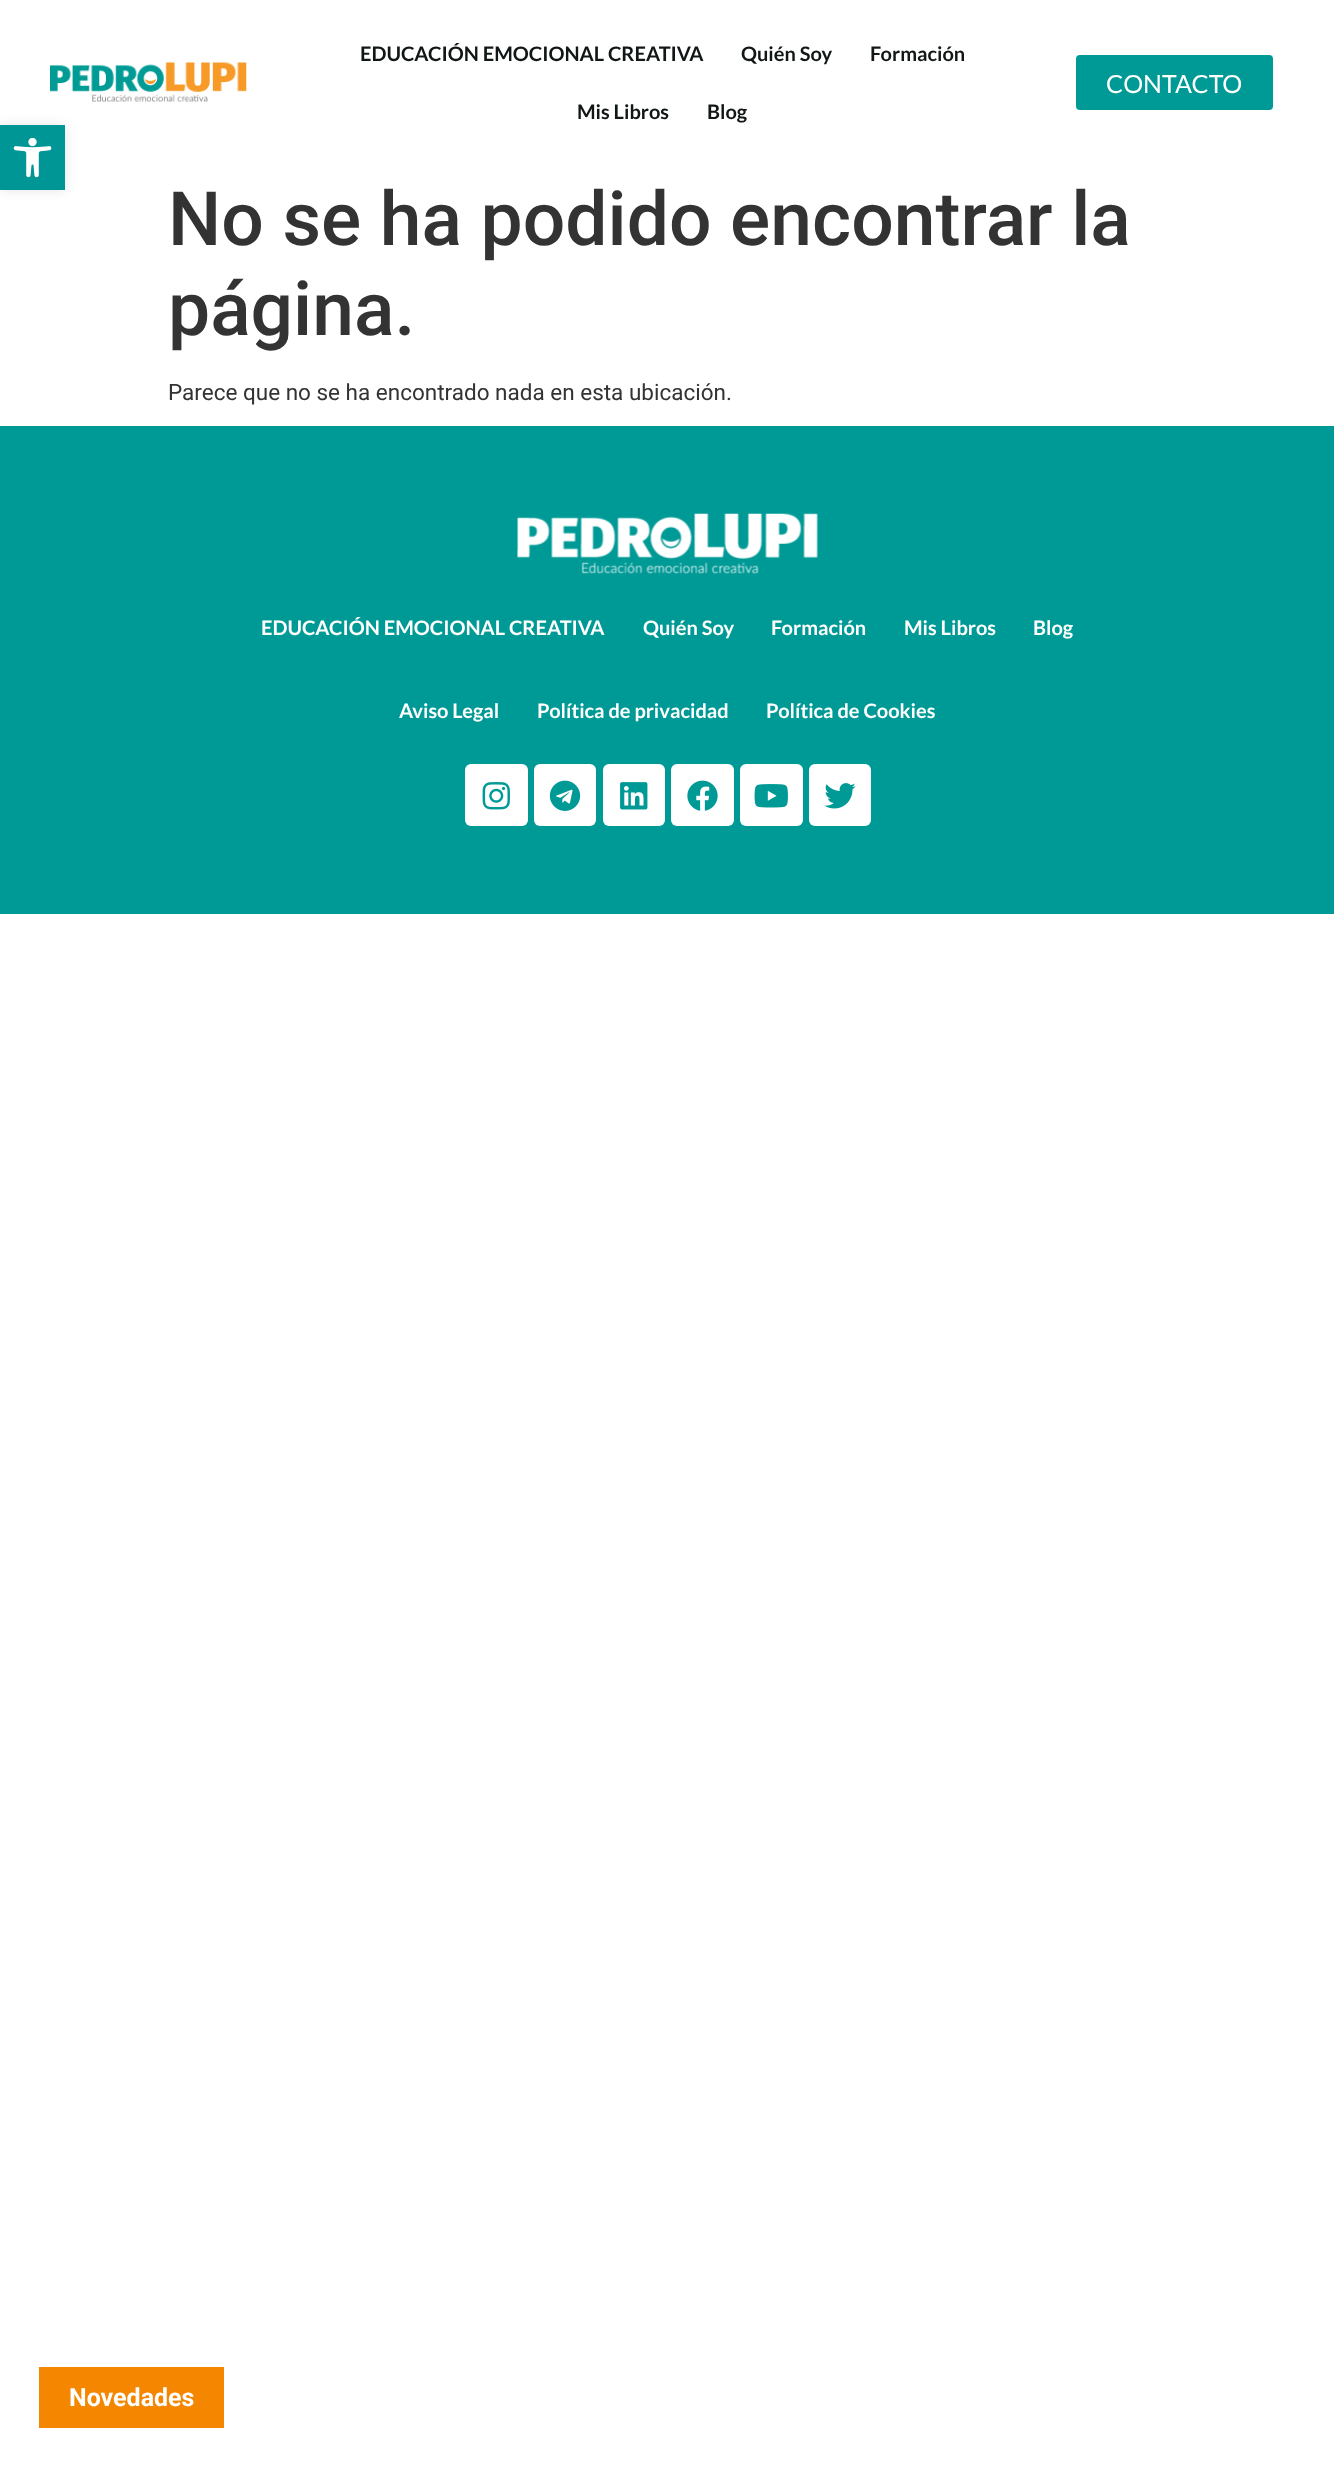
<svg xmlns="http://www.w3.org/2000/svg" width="1334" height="2466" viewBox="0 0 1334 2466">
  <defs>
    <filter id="blur1" x="-50%" y="-200%" width="200%" height="500%"><feGaussianBlur stdDeviation="6"/></filter>
  </defs>
  <rect width="100%" height="100%" fill="#ffffff"/>
  <rect x="0" y="125" width="65" height="65" fill="#000000" fill-opacity="0.1" filter="url(#blur1)"/>
  <rect x="0" y="125" width="65" height="65" fill="#009695"/>
  <image x="13" y="138" width="39" height="40" href="img1.png"/>
  <image x="50" y="62" width="197" height="40" href="img2.png"/>
  <text x="360" y="61" font-family="Lato" font-size="20" font-weight="bold" fill="#111616">EDUCACIÓN EMOCIONAL CREATIVA</text>
  <text x="741" y="61" font-family="Lato" font-size="20" font-weight="bold" fill="#111616">Quién Soy</text>
  <text x="870" y="61" font-family="Lato" font-size="20" font-weight="bold" fill="#111616">Formación</text>
  <text x="577" y="119" font-family="Lato" font-size="20" font-weight="bold" fill="#111616">Mis Libros</text>
  <text x="707" y="119" font-family="Lato" font-size="20" font-weight="bold" fill="#111616">Blog</text>
  <rect x="1076" y="55" width="197" height="55" rx="4" fill="#009a96"/>
  <text x="1106" y="93" font-family="Lato" font-size="25" fill="#ffffff">CONTACTO</text>
  <text x="168" y="245" font-family="Roboto" font-size="75" font-weight="500" fill="#333333">No se ha podido encontrar la</text>
  <text x="168" y="335" font-family="Roboto" font-size="75" font-weight="500" fill="#333333">página.</text>
  <text x="168" y="400" font-family="Roboto" font-size="22.5" fill="#333333">Parece que no se ha encontrado nada en esta ubicación.</text>
  <rect x="0" y="426" width="1334" height="488" fill="#009a96"/>
  <image x="517" y="513" width="301" height="61" href="img3.png"/>
  <text x="261" y="635" font-family="Lato" font-size="20" font-weight="bold" fill="#ffffff">EDUCACIÓN EMOCIONAL CREATIVA</text>
  <text x="643" y="635" font-family="Lato" font-size="20" font-weight="bold" fill="#ffffff">Quién Soy</text>
  <text x="771" y="635" font-family="Lato" font-size="20" font-weight="bold" fill="#ffffff">Formación</text>
  <text x="904" y="635" font-family="Lato" font-size="20" font-weight="bold" fill="#ffffff">Mis Libros</text>
  <text x="1033" y="635" font-family="Lato" font-size="20" font-weight="bold" fill="#ffffff">Blog</text>
  <text x="399" y="718" font-family="Lato" font-size="20" font-weight="bold" fill="#ffffff">Aviso Legal</text>
  <text x="537" y="718" font-family="Lato" font-size="20" font-weight="bold" fill="#ffffff">Política de privacidad</text>
  <text x="766" y="718" font-family="Lato" font-size="20" font-weight="bold" fill="#ffffff">Política de Cookies</text>
  <rect x="465" y="764" width="63" height="62" rx="6" fill="#ffffff"/>
  <image x="482" y="782" width="28" height="28" href="img4.png"/>
  <rect x="534" y="764" width="62" height="62" rx="6" fill="#ffffff"/>
  <image x="549" y="780" width="32" height="31" href="img5.png"/>
  <rect x="603" y="764" width="62" height="62" rx="6" fill="#ffffff"/>
  <image x="620" y="782" width="28" height="28" href="img6.png"/>
  <rect x="671" y="764" width="63" height="62" rx="6" fill="#ffffff"/>
  <image x="687" y="780" width="31" height="31" href="img7.png"/>
  <rect x="740" y="764" width="63" height="62" rx="6" fill="#ffffff"/>
  <image x="754" y="784" width="34" height="24" href="img8.png"/>
  <rect x="809" y="764" width="62" height="62" rx="6" fill="#ffffff"/>
  <image x="824" y="783" width="32" height="26" href="img9.png"/>
  <rect x="38.5" y="2366.5" width="186" height="62" rx="0.5" fill="#f48600" stroke="#ffffff"/>
  <text x="69" y="2406" font-family="Roboto" font-size="25" font-weight="bold" fill="#ffffff">Novedades</text>
</svg>
